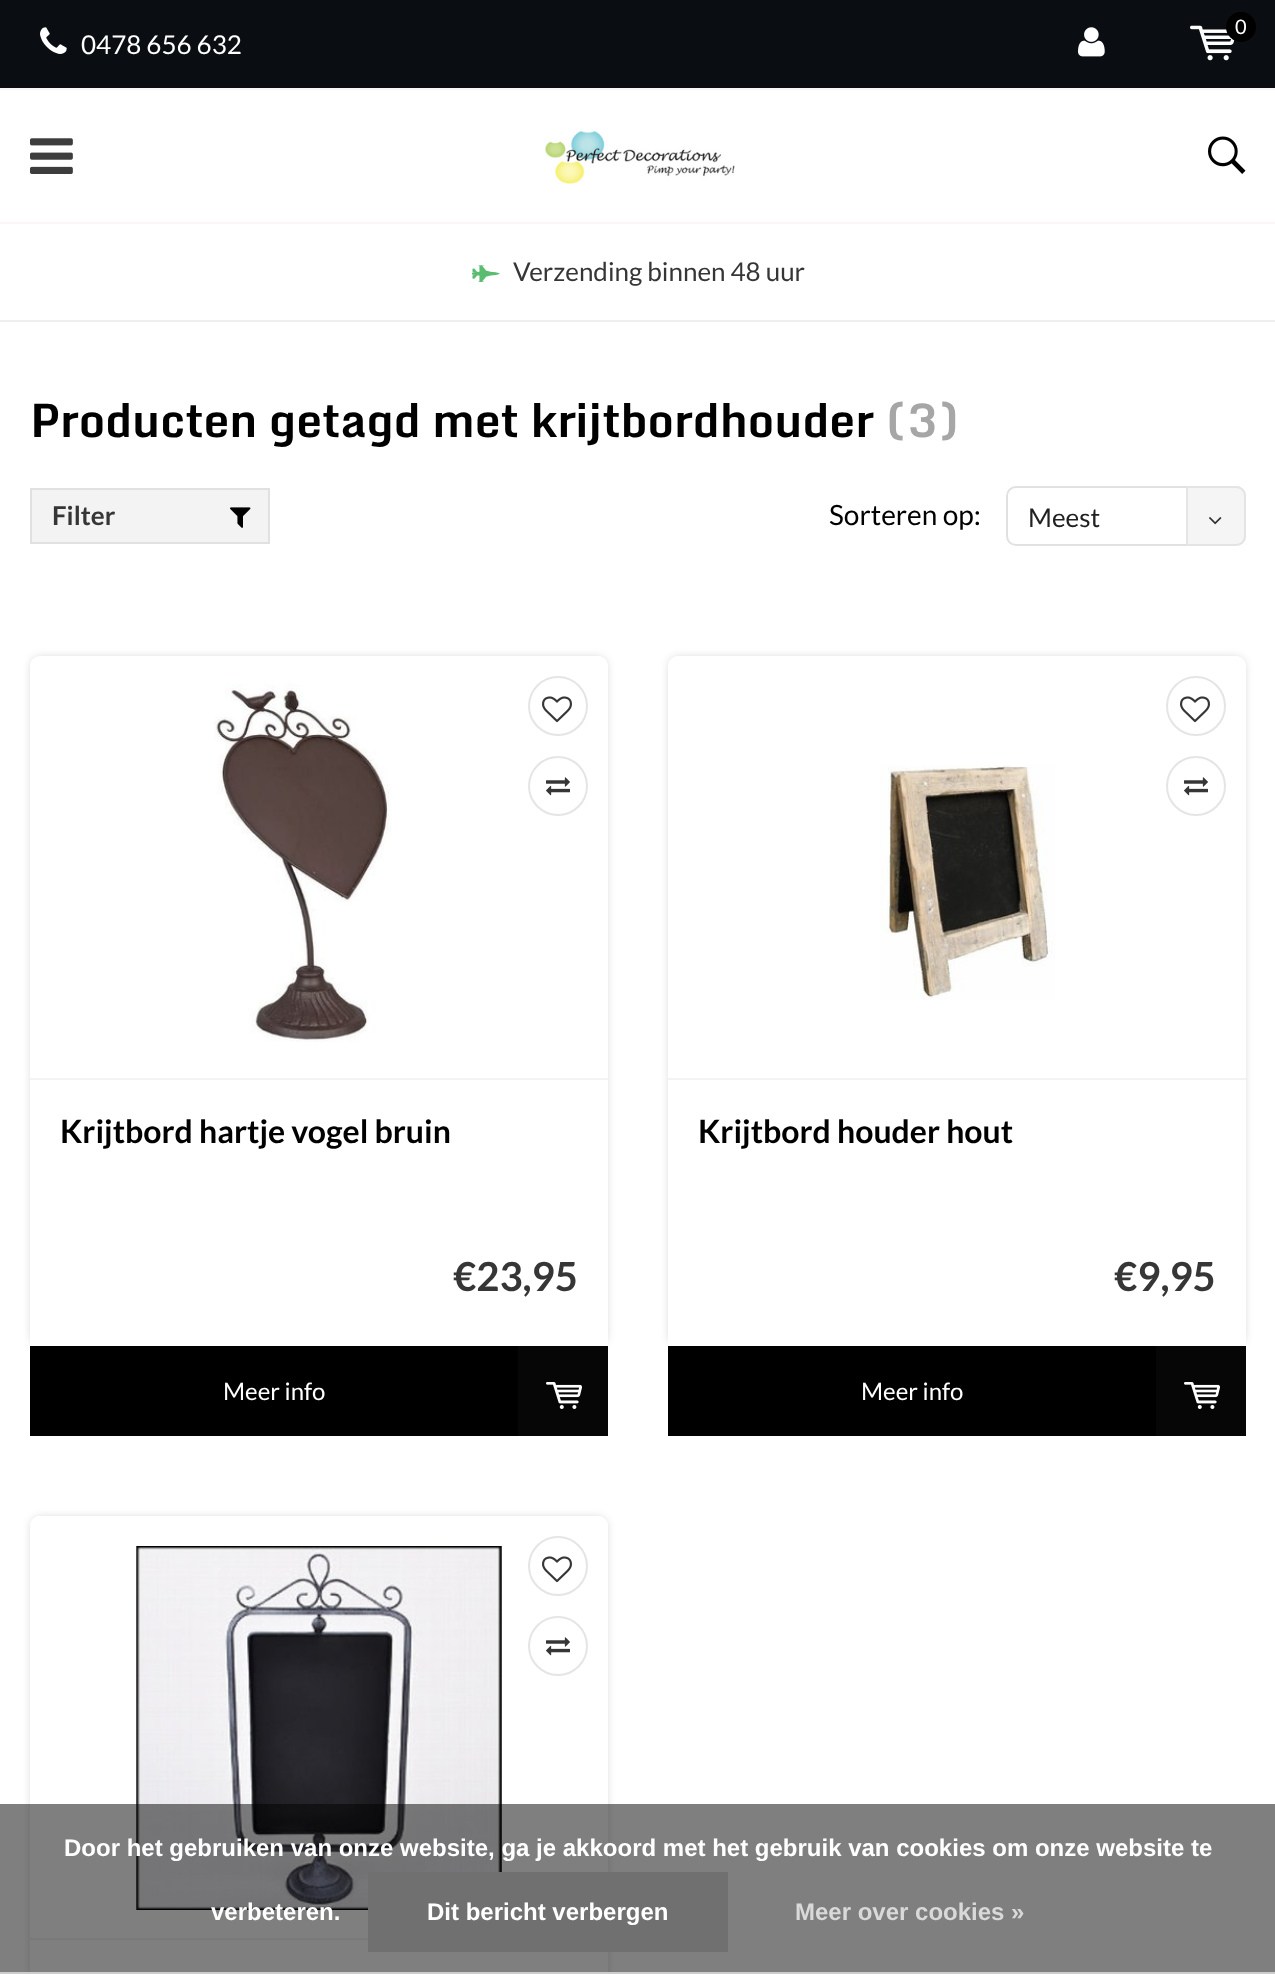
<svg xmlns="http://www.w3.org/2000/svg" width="1275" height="1974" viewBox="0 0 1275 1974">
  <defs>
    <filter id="blur1" x="-50%" y="-200%" width="200%" height="500%"><feGaussianBlur stdDeviation="5"/></filter>
    <clipPath id="clip1"><path d="M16 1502H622V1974H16ZM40 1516H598C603.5 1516 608 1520.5 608 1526V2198C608 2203.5 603.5 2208 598 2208H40C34.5 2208 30 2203.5 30 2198V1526C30 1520.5 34.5 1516 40 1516Z" clip-rule="evenodd"/></clipPath>
  </defs>
  <rect width="100%" height="100%" fill="#ffffff"/>
  <rect x="0" y="0" width="1275" height="88" fill="#0a0d11"/>
  <image x="1078" y="27" width="27" height="30" href="img1.png"/>
  <image x="1190" y="25" width="45" height="36" href="img2.png"/>
  <circle cx="1241" cy="27" r="15" fill="#000000"/>
  <text x="1235" y="34" font-family="Lato" font-size="20" fill="#ffffff">0</text>
  <image x="40" y="27" width="27" height="27" href="img3.png"/>
  <text x="81" y="54" font-family="Lato" font-size="26" fill="#ffffff">0478 656 632</text>
  <rect x="0" y="88" width="1275" height="2" fill="#faf6f6"/>
  <rect x="0" y="222" width="1275" height="2" fill="#faf6f6"/>
  <image x="30" y="138" width="43" height="36" href="img4.png"/>
  <image x="545" y="131" width="190" height="53" href="img5.png"/>
  <image x="1208" y="136" width="38" height="38" href="img6.png"/>
  <rect x="0" y="320" width="1275" height="2" fill="#efefef"/>
  <image x="472" y="265" width="28" height="17" href="img7.png"/>
  <text x="513" y="281" font-family="Lato" font-size="26" fill="#363636">Verzending binnen 48 uur</text>
  <text x="30" y="437" font-family="Monda" font-size="46" font-weight="bold" fill="#000000">Producten getagd met krijtbordhouder</text>
  <text x="885" y="437" font-family="Monda" font-size="46" font-weight="bold" fill="#a6a6a6">(3)</text>
  <rect x="31" y="489" width="238" height="54" fill="#f3f3f3" stroke="#e1e1e1" stroke-width="2"/>
  <text x="52" y="525" font-family="Lato" font-size="26" font-weight="bold" fill="#363636">Filter</text>
  <image x="230" y="507" width="21" height="21" href="img8.png"/>
  <text x="829" y="525" font-family="Lato" font-size="28" fill="#000000">Sorteren op:</text>
  <rect x="1007" y="487" width="238" height="58" rx="9" fill="none" stroke="#e1e1e1" stroke-width="2"/>
  <text x="1028" y="527" font-family="Lato" font-size="26" fill="#212121">Meest</text>
  <path d="M1186 486H1236C1241.5 486 1246 490.5 1246 496V536C1246 541.5 1241.5 546 1236 546H1186Z" fill="#f3f3f3" fill-opacity="0.8"/>
  <path d="M1187 487H1236C1241 487 1245 491 1245 496V536C1245 541 1241 545 1236 545H1187Z" fill="none" stroke="#e1e1e1" stroke-opacity="0.8" stroke-width="2"/>
  <image x="1209" y="517" width="13" height="8" href="img9.png"/>
  <rect x="32" y="658" width="574" height="686" rx="8" fill="#000000" fill-opacity="0.2" filter="url(#blur1)"/>
  <path d="M40 656H598C603.5 656 608 660.5 608 666V1080H30V666C30 660.5 34.5 656 40 656Z" fill="#ffffff"/>
  <rect x="30" y="1078" width="578" height="2" fill="#f3f3f3"/>
  <image x="214" y="684" width="178" height="358" href="img10.png"/>
  <circle cx="558" cy="706" r="29" fill="none" stroke="#e5e5e5" stroke-width="2"/>
  <image x="542" y="696" width="30" height="27" href="img11.png"/>
  <circle cx="558" cy="786" r="29" fill="none" stroke="#e5e5e5" stroke-width="2"/>
  <image x="546" y="777" width="24" height="19" href="img12.png"/>
  <rect x="30" y="1080" width="578" height="266" fill="#ffffff"/>
  <text x="60" y="1143" font-family="Lato" font-size="32" font-weight="bold" fill="#000000">Krijtbord hartje vogel bruin</text>
  <text x="453" y="1291" font-family="Lato" font-size="40" font-weight="bold" fill="#363636">€23,95</text>
  <rect x="30" y="1346" width="488" height="90" fill="#000000"/>
  <text x="223" y="1400" font-family="Lato" font-size="24" fill="#ffffff">Meer info</text>
  <rect x="518" y="1346" width="90" height="90" fill="#060606"/>
  <image x="546" y="1382" width="36" height="27" href="img13.png"/>
  <rect x="670" y="658" width="574" height="686" rx="8" fill="#000000" fill-opacity="0.2" filter="url(#blur1)"/>
  <path d="M678 656H1236C1241.5 656 1246 660.5 1246 666V1080H668V666C668 660.5 672.5 656 678 656Z" fill="#ffffff"/>
  <rect x="668" y="1078" width="578" height="2" fill="#f3f3f3"/>
  <circle cx="1196" cy="706" r="29" fill="none" stroke="#e5e5e5" stroke-width="2"/>
  <image x="1180" y="696" width="30" height="27" href="img11.png"/>
  <image x="880" y="765" width="175" height="235" href="img14.png"/>
  <circle cx="1196" cy="786" r="29" fill="none" stroke="#e5e5e5" stroke-width="2"/>
  <image x="1184" y="777" width="24" height="19" href="img12.png"/>
  <rect x="668" y="1080" width="578" height="266" fill="#ffffff"/>
  <text x="698" y="1143" font-family="Lato" font-size="32" font-weight="bold" fill="#000000">Krijtbord houder hout</text>
  <text x="1114" y="1291" font-family="Lato" font-size="40" font-weight="bold" fill="#363636">€9,95</text>
  <rect x="668" y="1346" width="488" height="90" fill="#000000"/>
  <text x="861" y="1400" font-family="Lato" font-size="24" fill="#ffffff">Meer info</text>
  <rect x="1156" y="1346" width="90" height="90" fill="#060606"/>
  <image x="1184" y="1382" width="36" height="27" href="img13.png"/>
  <g clip-path="url(#clip1)">
    <rect x="32" y="1518" width="574" height="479" rx="8" fill="#000000" fill-opacity="0.2" filter="url(#blur1)"/>
  </g>
  <path d="M40 1516H598C603.5 1516 608 1520.5 608 1526V1940H30V1526C30 1520.5 34.5 1516 40 1516Z" fill="#ffffff"/>
  <rect x="30" y="1938" width="338" height="2" fill="#f3f3f3"/>
  <image x="136" y="1546" width="366" height="364" href="img15.png"/>
  <circle cx="558" cy="1566" r="29" fill="none" stroke="#e5e5e5" stroke-width="2"/>
  <image x="542" y="1556" width="30" height="27" href="img11.png"/>
  <circle cx="558" cy="1646" r="29" fill="none" stroke="#e5e5e5" stroke-width="2"/>
  <image x="546" y="1637" width="24" height="19" href="img12.png"/>
  <rect x="0" y="1804" width="1275" height="168" fill="#000000" fill-opacity="0.5"/>
  <rect x="0" y="1972" width="1275" height="2" fill="#cccccc"/>
  <text x="64" y="1856" font-family="Liberation Sans" font-size="24" font-weight="bold" fill="#ffffff">Door het gebruiken van onze website, ga je akkoord met het gebruik van cookies om onze website te</text>
  <text x="211" y="1920" font-family="Liberation Sans" font-size="24" font-weight="bold" fill="#ffffff">verbeteren.</text>
  <rect x="368" y="1872" width="360" height="80" fill="#707070"/>
  <text x="427" y="1920" font-family="Liberation Sans" font-size="24" font-weight="bold" fill="#ffffff">Dit bericht verbergen</text>
  <text x="795" y="1920" font-family="Liberation Sans" font-size="24" font-weight="bold" fill="#d9d9d9">Meer over cookies »</text>
</svg>
